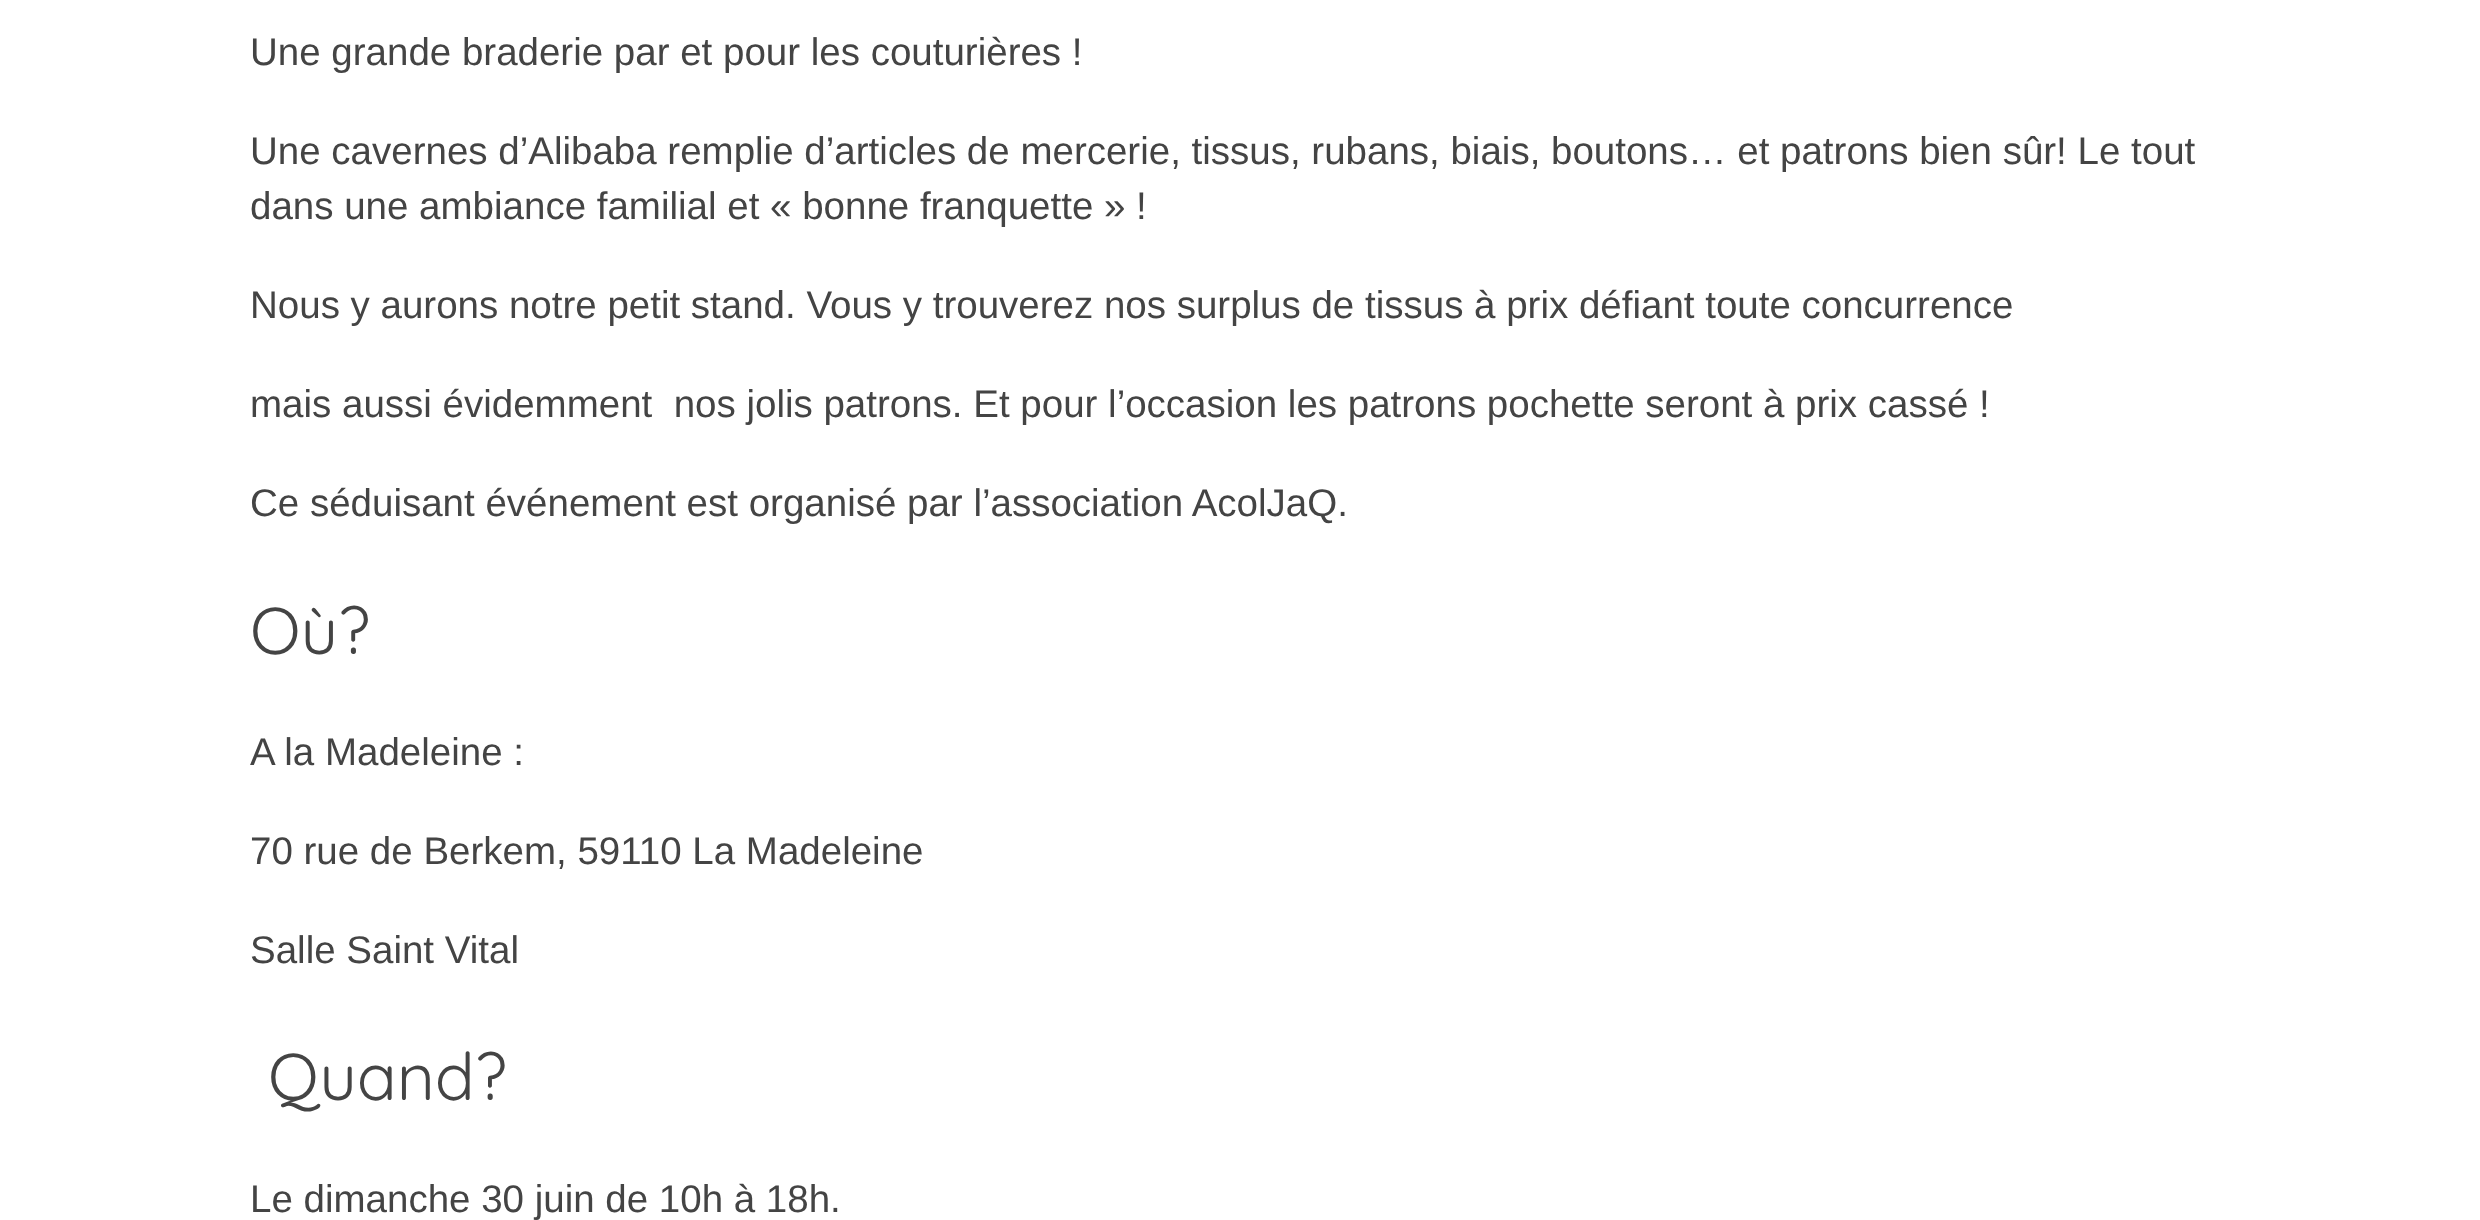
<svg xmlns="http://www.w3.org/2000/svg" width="2480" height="1220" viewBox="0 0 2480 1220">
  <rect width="100%" height="100%" fill="#ffffff"/>
  <text x="250" y="65" font-family="Liberation Sans" font-size="38.5" fill="#444444">Une grande braderie par et pour les couturières !</text>
  <text x="250" y="164" font-family="Liberation Sans" font-size="38.5" fill="#444444">Une cavernes d’Alibaba remplie d’articles de mercerie, tissus, rubans, biais, boutons… et patrons bien sûr! Le tout</text>
  <text x="250" y="219" font-family="Liberation Sans" font-size="38.5" fill="#444444">dans une ambiance familial et « bonne franquette » !</text>
  <text x="250" y="318" font-family="Liberation Sans" font-size="38.5" fill="#444444">Nous y aurons notre petit stand. Vous y trouverez nos surplus de tissus à prix défiant toute concurrence</text>
  <text x="250" y="417" font-family="Liberation Sans" font-size="38.5" fill="#444444" xml:space="preserve">mais aussi évidemment  nos jolis patrons. Et pour l’occasion les patrons pochette seront à prix cassé !</text>
  <text x="250" y="516" font-family="Liberation Sans" font-size="38.5" fill="#444444">Ce séduisant événement est organisé par l’association AcolJaQ.</text>
  <text x="250" y="654" font-family="Quicksand" font-size="66" fill="#444444">Où?</text>
  <text x="250" y="765" font-family="Liberation Sans" font-size="38.5" fill="#444444">A la Madeleine :</text>
  <text x="250" y="864" font-family="Liberation Sans" font-size="38.5" fill="#444444">70 rue de Berkem, 59110 La Madeleine</text>
  <text x="250" y="963" font-family="Liberation Sans" font-size="38.5" fill="#444444">Salle Saint Vital</text>
  <text x="268" y="1100" font-family="Quicksand" font-size="66" fill="#444444">Quand?</text>
  <text x="250" y="1212" font-family="Liberation Sans" font-size="38.5" fill="#444444">Le dimanche 30 juin de 10h à 18h.</text>
</svg>
